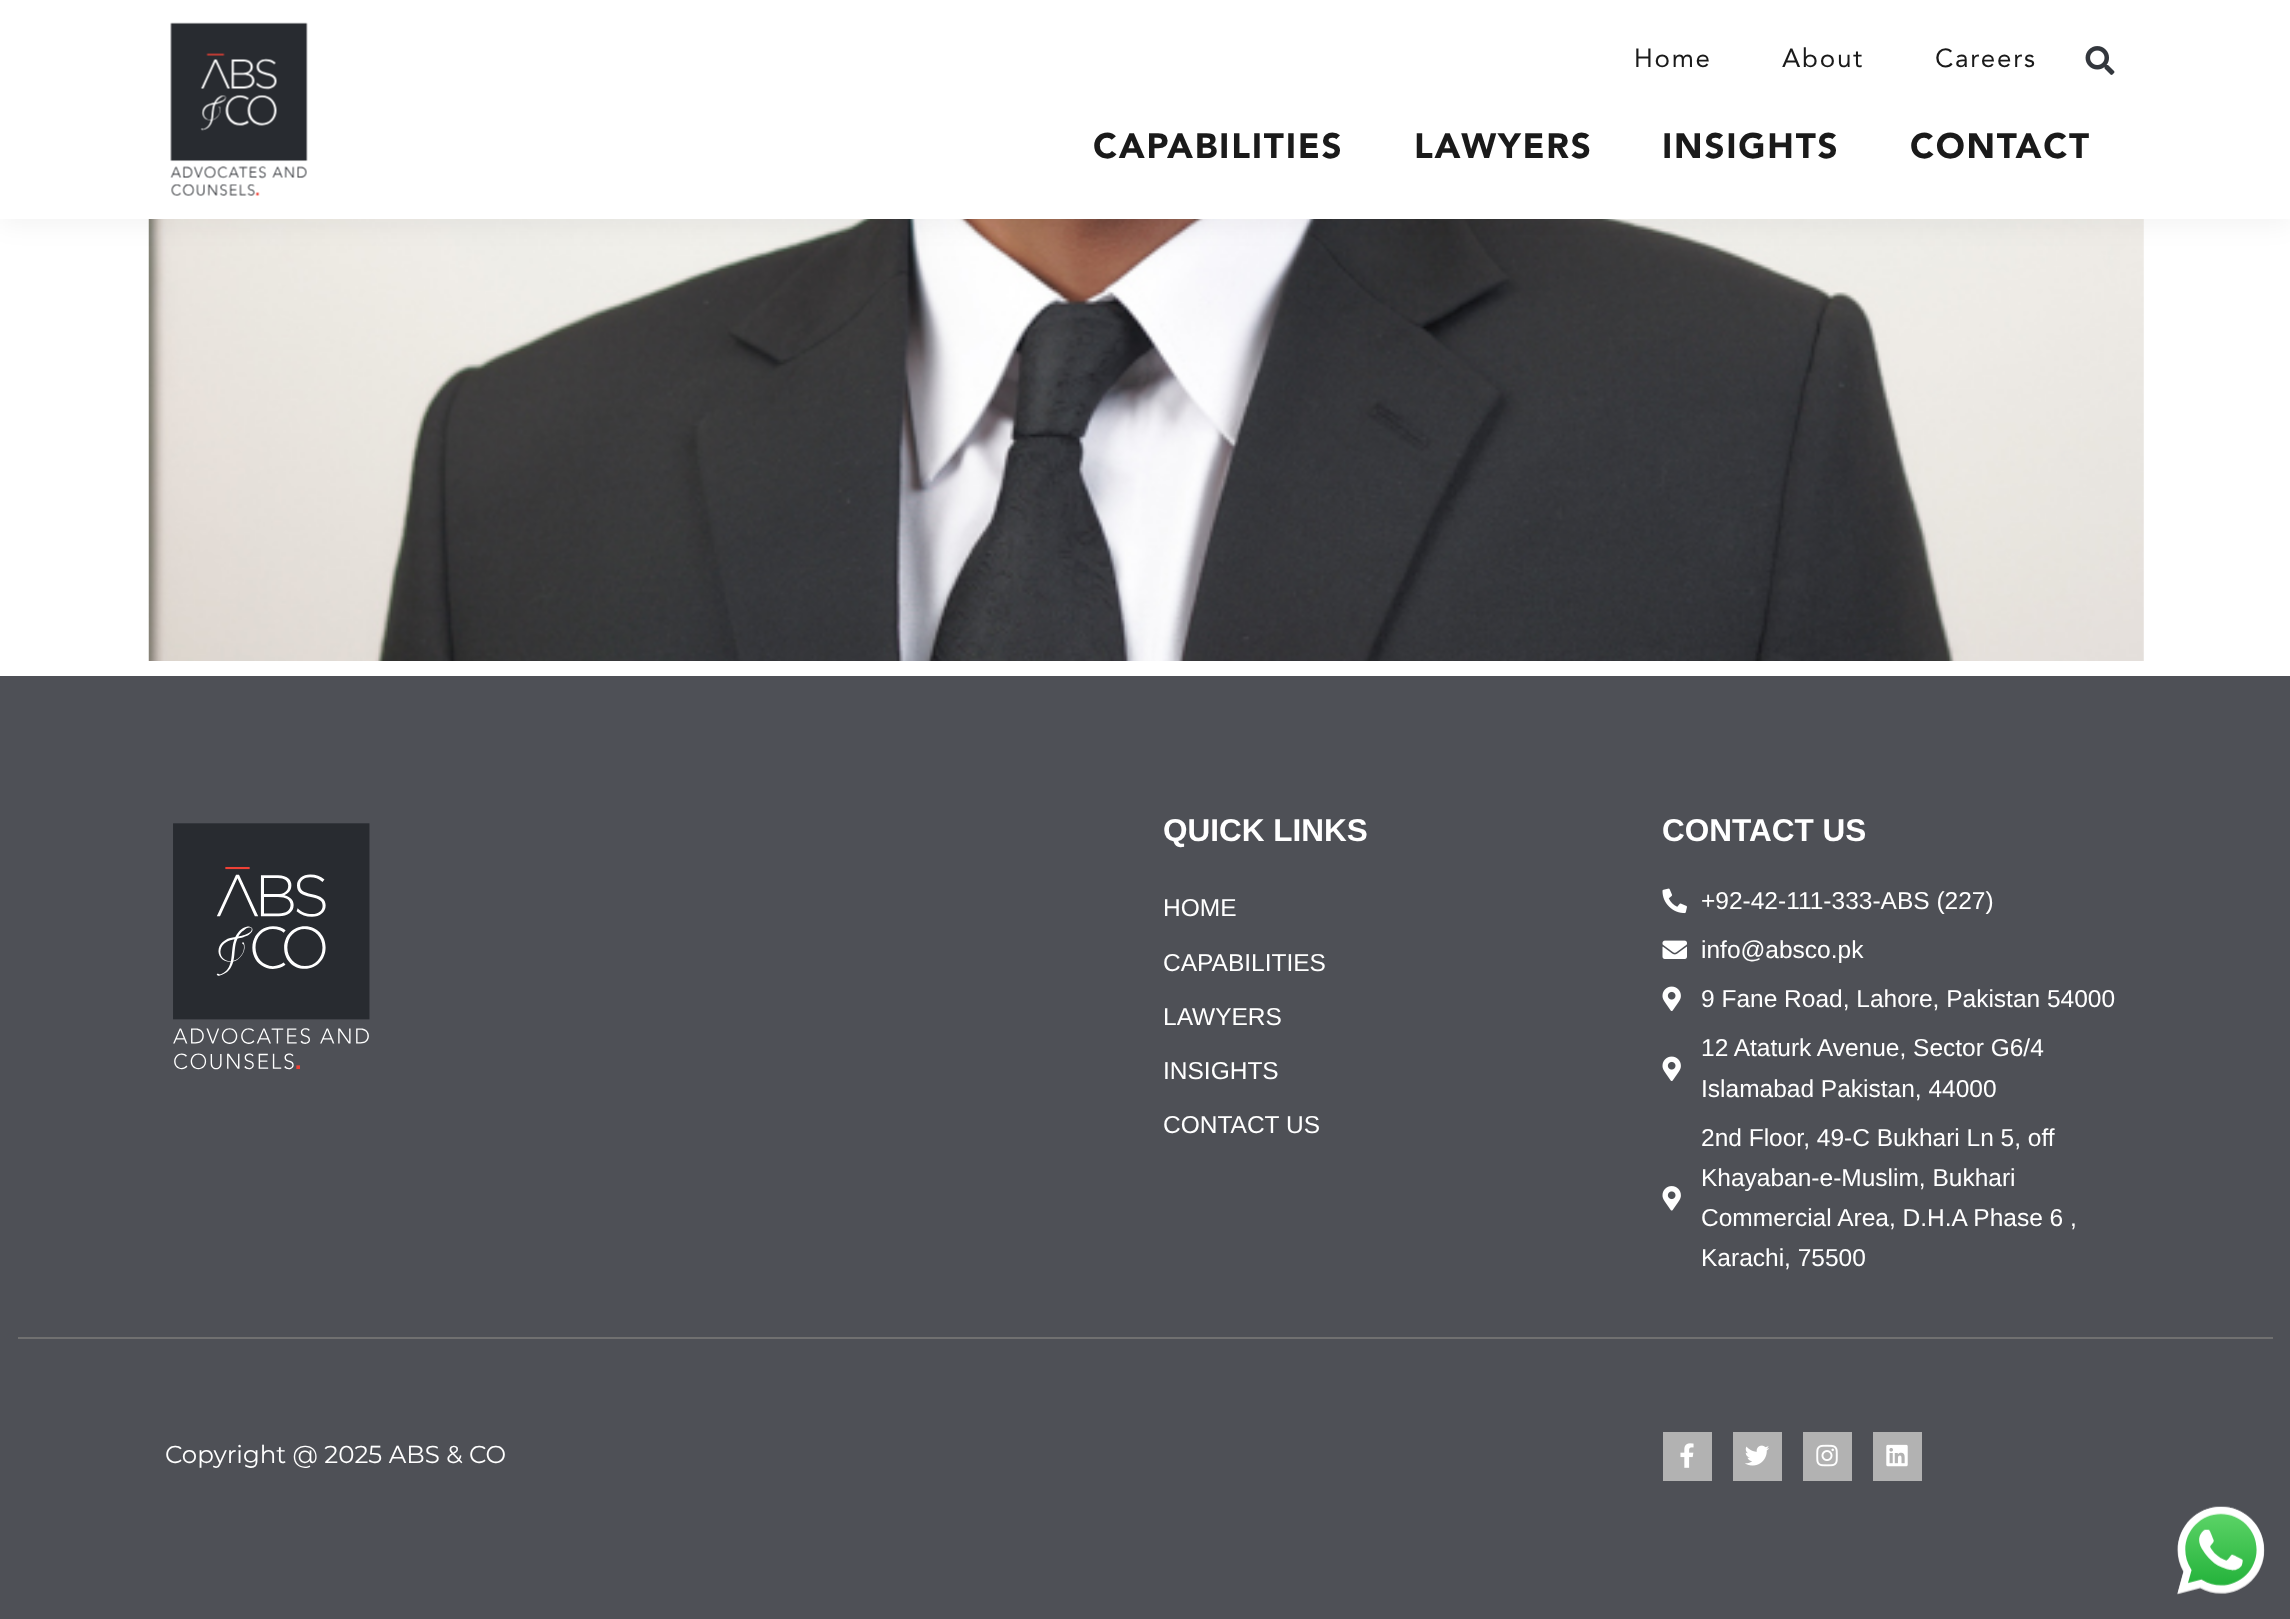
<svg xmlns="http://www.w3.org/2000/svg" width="2290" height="1619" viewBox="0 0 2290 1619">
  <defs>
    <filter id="blur1" x="-50%" y="-200%" width="200%" height="500%"><feGaussianBlur stdDeviation="13"/></filter>
  </defs>
  <rect width="100%" height="100%" fill="#ffffff"/>
  <image x="148" y="219" width="1996" height="442" href="img3.png"/>
  <rect x="0" y="5" width="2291" height="219" fill="#000000" fill-opacity="0.05" filter="url(#blur1)"/>
  <rect x="0" y="0" width="2290" height="219" fill="#ffffff"/>
  <image x="170" y="22" width="138" height="174" href="img1.png"/>
  <text x="1634" y="67" font-family="Avenir" font-size="26" letter-spacing="1.75" fill="#1a1a1a">Home</text>
  <text x="1782" y="67" font-family="Avenir" font-size="26" letter-spacing="1.75" fill="#1a1a1a">About</text>
  <text x="1935" y="67" font-family="Avenir" font-size="26" letter-spacing="1.75" fill="#1a1a1a">Careers</text>
  <image x="2085" y="46" width="30" height="29" href="img2.png"/>
  <text x="1093" y="158" font-family="Avenir" font-size="35" font-weight="900" letter-spacing="1.75" fill="#1a1a1a">CAPABILITIES</text>
  <text x="1414" y="158" font-family="Avenir" font-size="35" font-weight="900" letter-spacing="1.75" fill="#1a1a1a">LAWYERS</text>
  <text x="1662" y="158" font-family="Avenir" font-size="35" font-weight="900" letter-spacing="1.75" fill="#1a1a1a">INSIGHTS</text>
  <text x="1910" y="158" font-family="Avenir" font-size="35" font-weight="900" letter-spacing="1.75" fill="#1a1a1a">CONTACT</text>
  <rect x="0" y="676" width="2290" height="943" fill="#4e5056"/>
  <image x="173" y="823" width="197" height="247" href="img4.png"/>
  <text x="1163" y="841" font-family="Liberation Sans" font-size="31.5" font-weight="bold" fill="#ffffff">QUICK LINKS</text>
  <text x="1163" y="916" font-family="Liberation Sans" font-size="24.5" fill="#ffffff">HOME</text>
  <text x="1163" y="971" font-family="Liberation Sans" font-size="24.5" fill="#ffffff">CAPABILITIES</text>
  <text x="1163" y="1025" font-family="Liberation Sans" font-size="24.5" fill="#ffffff">LAWYERS</text>
  <text x="1163" y="1079" font-family="Liberation Sans" font-size="24.5" fill="#ffffff">INSIGHTS</text>
  <text x="1163" y="1133" font-family="Liberation Sans" font-size="24.5" fill="#ffffff">CONTACT US</text>
  <text x="1662" y="841" font-family="Liberation Sans" font-size="31.5" font-weight="bold" fill="#ffffff">CONTACT US</text>
  <image x="1662" y="888" width="25" height="26" href="img5.png"/>
  <text x="1701" y="909" font-family="Liberation Sans" font-size="24.5" fill="#ffffff">+92-42-111-333-ABS (227)</text>
  <image x="1662" y="940" width="25" height="19" href="img6.png"/>
  <text x="1701" y="958" font-family="Liberation Sans" font-size="24.5" fill="#ffffff">info@absco.pk</text>
  <image x="1662" y="986" width="19" height="25" href="img7.png"/>
  <text x="1701" y="1007" font-family="Liberation Sans" font-size="24.5" fill="#ffffff">9 Fane Road, Lahore, Pakistan 54000</text>
  <image x="1662" y="1056" width="19" height="25" href="img7.png"/>
  <text x="1701" y="1056" font-family="Liberation Sans" font-size="24.5" fill="#ffffff">12 Ataturk Avenue, Sector G6/4</text>
  <text x="1701" y="1097" font-family="Liberation Sans" font-size="24.5" fill="#ffffff">Islamabad Pakistan, 44000</text>
  <image x="1662" y="1186" width="19" height="25" href="img8.png"/>
  <text x="1701" y="1146" font-family="Liberation Sans" font-size="24.5" fill="#ffffff">2nd Floor, 49-C Bukhari Ln 5, off</text>
  <text x="1701" y="1186" font-family="Liberation Sans" font-size="24.5" fill="#ffffff">Khayaban-e-Muslim, Bukhari</text>
  <text x="1701" y="1226" font-family="Liberation Sans" font-size="24.5" fill="#ffffff">Commercial Area, D.H.A Phase 6 ,</text>
  <text x="1701" y="1266" font-family="Liberation Sans" font-size="24.5" fill="#ffffff">Karachi, 75500</text>
  <rect x="18" y="1337" width="2255" height="2" fill="#707070"/>
  <text x="165" y="1463" font-family="Montserrat" font-size="24.5" fill="#ffffff">Copyright @ 2025 ABS &amp; CO</text>
  <rect x="1663" y="1432" width="49" height="49" fill="#b2b2b2"/>
  <image x="1680" y="1443" width="14" height="25" href="img9.png"/>
  <rect x="1733" y="1432" width="49" height="49" fill="#b2b2b2"/>
  <image x="1745" y="1445" width="24" height="21" href="img10.png"/>
  <rect x="1803" y="1432" width="49" height="49" fill="#b2b2b2"/>
  <image x="1816" y="1444" width="22" height="23" href="img11.png"/>
  <rect x="1873" y="1432" width="49" height="49" fill="#b2b2b2"/>
  <image x="1886" y="1444" width="22" height="23" href="img12.png"/>
  <image x="2177" y="1506" width="88" height="89" href="img13.png"/>
</svg>
